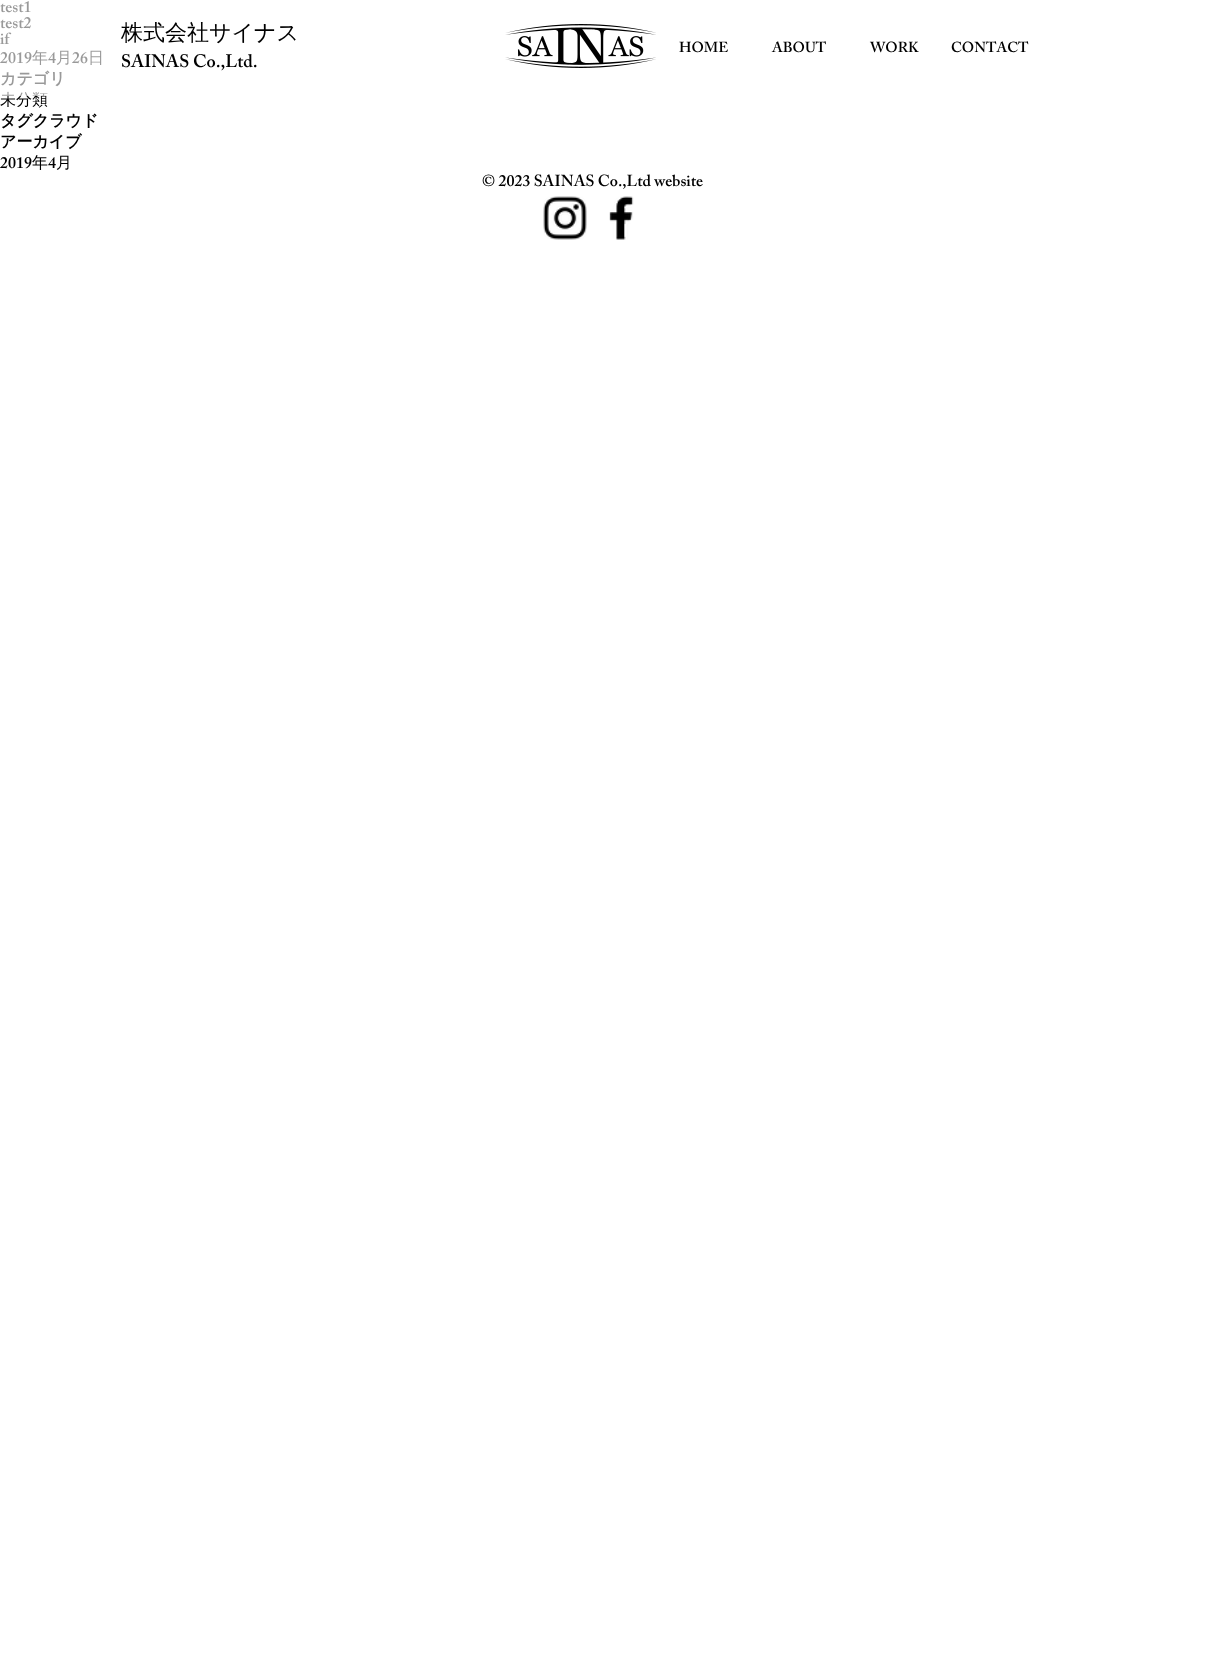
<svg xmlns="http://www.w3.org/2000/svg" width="1209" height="1663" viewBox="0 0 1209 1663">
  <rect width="100%" height="100%" fill="#ffffff"/>
  <text x="0" y="12" font-family="'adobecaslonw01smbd'" font-size="16" font-weight="600" fill="#000000">test1</text>
  <text x="0" y="28" font-family="'adobecaslonw01smbd'" font-size="16" font-weight="600" fill="#000000">test2</text>
  <text x="0" y="44" font-family="'adobecaslonw01smbd'" font-size="16" font-weight="600" fill="#000000">if</text>
  <text x="0" y="63" font-family="'adobecaslonw01smbd'" font-size="16" font-weight="600" fill="#000000">2019</text>
  <text x="32" y="63" font-family="WenQuanYi Zen Hei" font-size="16" font-weight="500" fill="#000000">年</text>
  <text x="48" y="63" font-family="'adobecaslonw01smbd'" font-size="16" font-weight="600" fill="#000000">4</text>
  <text x="56" y="63" font-family="WenQuanYi Zen Hei" font-size="16" font-weight="500" fill="#000000">月</text>
  <text x="72" y="63" font-family="'adobecaslonw01smbd'" font-size="16" font-weight="600" fill="#000000">26</text>
  <text x="88" y="63" font-family="WenQuanYi Zen Hei" font-size="16" font-weight="500" fill="#000000">日</text>
  <text x="0" y="84" font-family="WenQuanYi Zen Hei" font-size="16" font-weight="bold" fill="#000000">カテゴリ</text>
  <text x="0" y="105" font-family="WenQuanYi Zen Hei" font-size="16" font-weight="500" fill="#000000">未分類</text>
  <rect x="0" y="1" width="102" height="95" fill="#ffffff" fill-opacity="0.6"/>
  <text x="121" y="40" font-family="WenQuanYi Zen Hei" font-size="22" font-weight="500" fill="#000000">株式会社サイナス</text>
  <text x="121" y="67" font-family="'adobecaslonw01smbd'" font-size="18" font-weight="600" fill="#000000">SAINAS Co.,Ltd.</text>
  <image x="505" y="24" width="151" height="44" href="img1.png"/>
  <text x="679" y="52" font-family="'adobecaslonw01smbd'" font-size="14.5" font-weight="600" fill="#000000">HOME</text>
  <text x="772" y="52" font-family="'adobecaslonw01smbd'" font-size="14.5" font-weight="600" fill="#000000">ABOUT</text>
  <text x="870" y="52" font-family="'adobecaslonw01smbd'" font-size="14.5" font-weight="600" fill="#000000">WORK</text>
  <text x="951" y="52" font-family="'adobecaslonw01smbd'" font-size="14.5" font-weight="600" fill="#000000">CONTACT</text>
  <text x="0" y="126" font-family="WenQuanYi Zen Hei" font-size="16" font-weight="bold" fill="#000000">タグクラウド</text>
  <text x="0" y="147" font-family="WenQuanYi Zen Hei" font-size="16" font-weight="bold" fill="#000000">アーカイブ</text>
  <text x="0" y="168" font-family="'adobecaslonw01smbd'" font-size="16" font-weight="600" fill="#000000">2019</text>
  <text x="32" y="168" font-family="WenQuanYi Zen Hei" font-size="16" font-weight="500" fill="#000000">年</text>
  <text x="48" y="168" font-family="'adobecaslonw01smbd'" font-size="16" font-weight="600" fill="#000000">4</text>
  <text x="56" y="168" font-family="WenQuanYi Zen Hei" font-size="16" font-weight="500" fill="#000000">月</text>
  <text x="482" y="186" font-family="'adobecaslonw01smbd'" font-size="16" font-weight="600" fill="#000000">© 2023 SAINAS Co.,Ltd website</text>
  <image x="543" y="196" width="44" height="44" href="img2.png"/>
  <image x="609" y="196" width="25" height="44" href="img3.png"/>
</svg>
